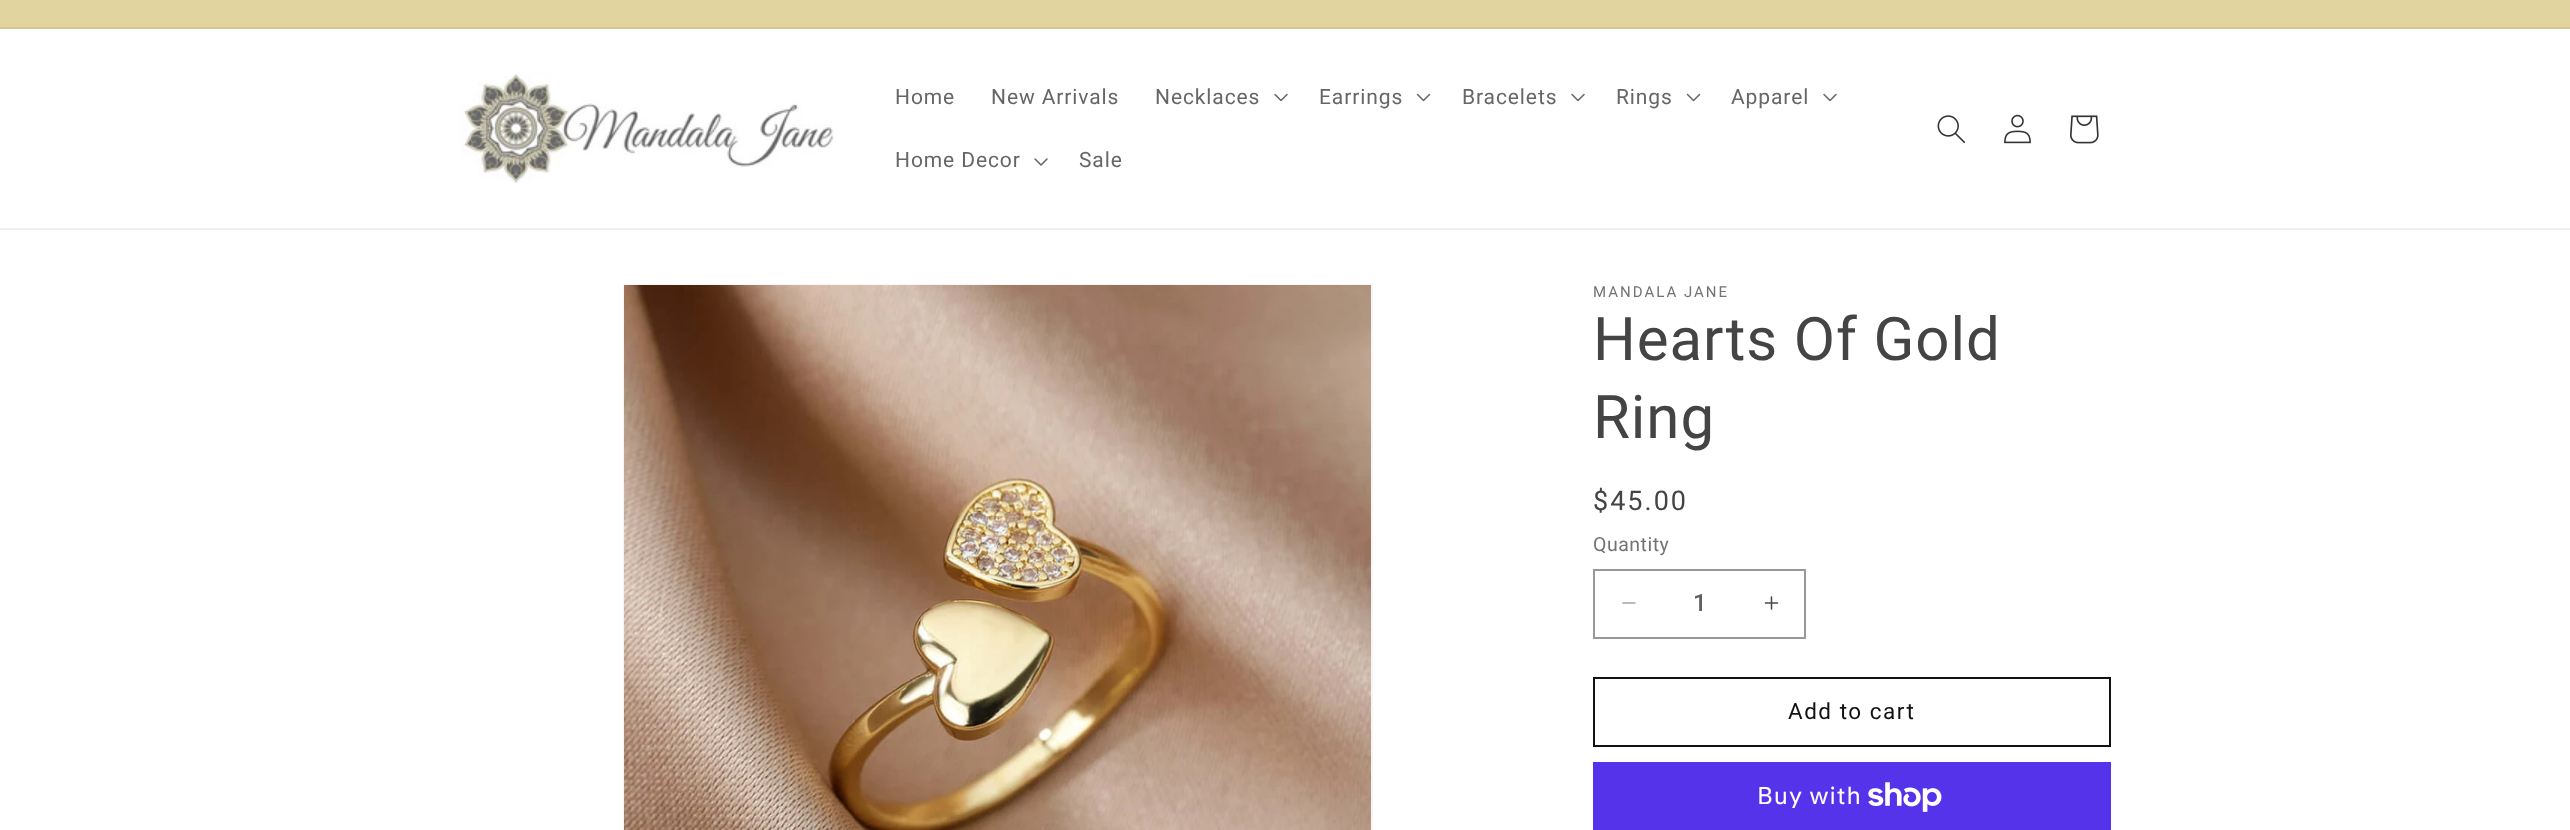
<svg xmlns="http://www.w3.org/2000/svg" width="2570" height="830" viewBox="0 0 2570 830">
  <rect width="100%" height="100%" fill="#ffffff"/>
  <rect x="0" y="0" width="2570" height="27" fill="#e1d49f"/>
  <rect x="0" y="27" width="2570" height="2" fill="#d3c796"/>
  <rect x="0" y="228" width="2570" height="2" fill="#efefef"/>
  <image x="460" y="72" width="374" height="112" href="img1.png"/>
  <text x="895" y="104" font-family="Roboto" font-size="21" letter-spacing="0.9" fill="#666666">Home</text>
  <text x="991" y="104" font-family="Roboto" font-size="21" letter-spacing="0.9" fill="#666666">New Arrivals</text>
  <text x="1155" y="104" font-family="Roboto" font-size="21" letter-spacing="0.9" fill="#666666">Necklaces</text>
  <image x="1274" y="93" width="14" height="9" href="img2.png"/>
  <text x="1319" y="104" font-family="Roboto" font-size="21" letter-spacing="0.9" fill="#666666">Earrings</text>
  <image x="1416" y="93" width="15" height="9" href="img3.png"/>
  <text x="1462" y="104" font-family="Roboto" font-size="21" letter-spacing="0.9" fill="#666666">Bracelets</text>
  <image x="1571" y="93" width="14" height="9" href="img2.png"/>
  <text x="1616" y="104" font-family="Roboto" font-size="21" letter-spacing="0.9" fill="#666666">Rings</text>
  <image x="1686" y="93" width="15" height="9" href="img3.png"/>
  <text x="1731" y="104" font-family="Roboto" font-size="21" letter-spacing="0.9" fill="#666666">Apparel</text>
  <image x="1823" y="93" width="14" height="9" href="img2.png"/>
  <text x="895" y="167" font-family="Roboto" font-size="21" letter-spacing="0.9" fill="#666666">Home Decor</text>
  <image x="1034" y="158" width="14" height="8" href="img4.png"/>
  <text x="1079" y="167" font-family="Roboto" font-size="21" letter-spacing="0.9" fill="#666666">Sale</text>
  <image x="1937" y="115" width="28" height="28" href="img5.png"/>
  <image x="2004" y="114" width="27" height="30" href="img6.png"/>
  <image x="2070" y="115" width="29" height="29" href="img7.png"/>
  <rect x="624" y="285" width="748" height="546" fill="none" stroke="#f6f6f6" stroke-width="2"/>
  <image x="624" y="285" width="747" height="545" href="img8.png"/>
  <text x="1593" y="297" font-family="Roboto" font-size="15" letter-spacing="2" fill="#737373">MANDALA JANE</text>
  <text x="1593" y="360" font-family="Roboto" font-size="60" letter-spacing="0.9" fill="#444444">Hearts Of Gold</text>
  <text x="1593" y="438" font-family="Roboto" font-size="60" letter-spacing="0.9" fill="#444444">Ring</text>
  <text x="1593" y="510" font-family="Roboto" font-size="27" letter-spacing="2" fill="#444444">$45.00</text>
  <text x="1593" y="551" font-family="Roboto" font-size="19.5" letter-spacing="0.5" fill="#737373">Quantity</text>
  <image x="1622" y="602" width="14" height="2" href="img9.png"/>
  <image x="1764" y="596" width="15" height="14" href="img10.png"/>
  <rect x="1594" y="570" width="211" height="68" fill="none" stroke="#989898" stroke-width="2"/>
  <text x="1693" y="611" font-family="Roboto" font-size="24" font-weight="500" fill="#606060">1</text>
  <rect x="1594" y="678" width="516" height="68" fill="none" stroke="#121212" stroke-width="2"/>
  <text x="1788" y="719" font-family="Roboto" font-size="22.5" letter-spacing="1.5" fill="#121212">Add to cart</text>
  <rect x="1593" y="762" width="518" height="68" fill="#5433eb"/>
  <text x="1757" y="804" font-family="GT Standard" font-size="24" letter-spacing="0.9" fill="#ffffff">Buy with</text>
  <image x="1868" y="782" width="74" height="30" href="img11.png"/>
</svg>
